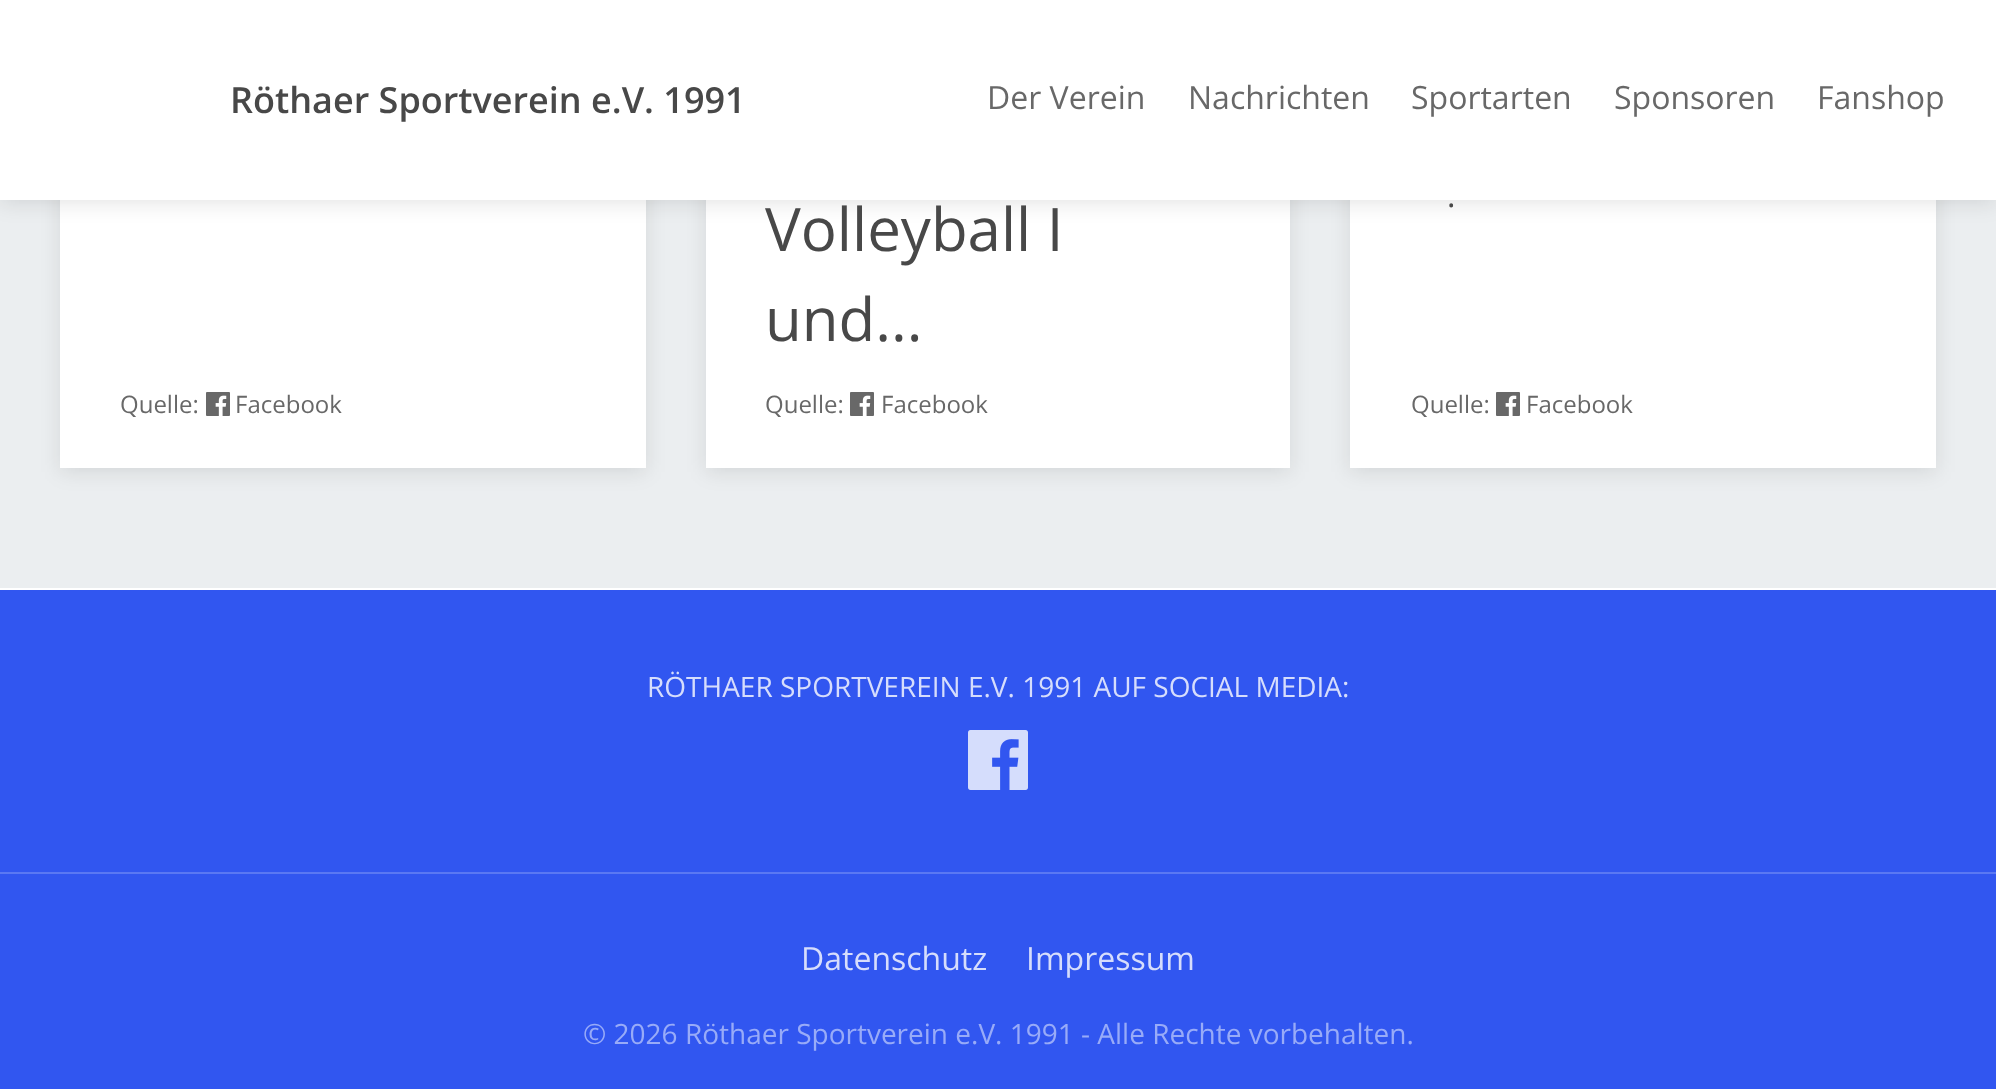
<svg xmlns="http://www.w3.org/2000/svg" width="1996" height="1089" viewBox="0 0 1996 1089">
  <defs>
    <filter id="blur1" x="-50%" y="-200%" width="200%" height="500%"><feGaussianBlur stdDeviation="10"/></filter>
  </defs>
  <rect width="100%" height="100%" fill="#ffffff"/>
  <rect x="0" y="200" width="1996" height="388" fill="#ebeef0"/>
  <rect x="60" y="-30" width="586" height="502" fill="#000000" fill-opacity="0.1" filter="url(#blur1)"/>
  <rect x="60" y="200" width="586" height="268" fill="#ffffff"/>
  <rect x="706" y="-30" width="584" height="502" fill="#000000" fill-opacity="0.1" filter="url(#blur1)"/>
  <rect x="706" y="200" width="584" height="268" fill="#ffffff"/>
  <rect x="1350" y="-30" width="586" height="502" fill="#000000" fill-opacity="0.1" filter="url(#blur1)"/>
  <rect x="1350" y="200" width="586" height="268" fill="#ffffff"/>
  <rect x="0" y="4" width="1996" height="200" fill="#000000" fill-opacity="0.1" filter="url(#blur1)"/>
  <rect x="0" y="0" width="1996" height="200" fill="#ffffff"/>
  <text x="230" y="113" font-family="Open Sans" font-size="36" font-weight="600" fill="#484848">Röthaer Sportverein e.V. 1991</text>
  <text x="987" y="109" font-family="Open Sans" font-size="32" fill="#686868">Der Verein</text>
  <text x="1188" y="109" font-family="Open Sans" font-size="32" fill="#686868">Nachrichten</text>
  <text x="1411" y="109" font-family="Open Sans" font-size="32" fill="#686868">Sportarten</text>
  <text x="1614" y="109" font-family="Open Sans" font-size="32" fill="#686868">Sponsoren</text>
  <text x="1817" y="109" font-family="Open Sans" font-size="32" fill="#686868">Fanshop</text>
  <text x="120" y="413" font-family="Open Sans" font-size="24" fill="#686868">Quelle:</text>
  <image x="206" y="392" width="24" height="24" href="img1.png"/>
  <text x="235" y="413" font-family="Open Sans" font-size="24" fill="#686868">Facebook</text>
  <text x="765" y="251" font-family="Open Sans" font-size="60" fill="#484848">Volleyball I</text>
  <text x="765" y="341" font-family="Open Sans" font-size="60" fill="#484848">und...</text>
  <text x="765" y="413" font-family="Open Sans" font-size="24" fill="#686868">Quelle:</text>
  <image x="850" y="392" width="24" height="24" href="img1.png"/>
  <text x="881" y="413" font-family="Open Sans" font-size="24" fill="#686868">Facebook</text>
  <text x="1447" y="207" font-family="Open Sans" font-size="32" fill="#484848">.</text>
  <text x="1411" y="413" font-family="Open Sans" font-size="24" fill="#686868">Quelle:</text>
  <image x="1496" y="392" width="24" height="24" href="img1.png"/>
  <text x="1526" y="413" font-family="Open Sans" font-size="24" fill="#686868">Facebook</text>
  <rect x="0" y="590" width="1996" height="282" fill="#3156f0"/>
  <rect x="0" y="872" width="1996" height="2" fill="#5a78f3"/>
  <text x="647" y="697" font-family="Open Sans" font-size="28" fill="#d6ddfc">RÖTHAER SPORTVEREIN E.V. 1991 AUF SOCIAL MEDIA:</text>
  <image x="968" y="730" width="60" height="60" href="img2.png"/>
  <rect x="0" y="874" width="1996" height="215" fill="#3156f0"/>
  <text x="801" y="970" font-family="Open Sans" font-size="32" fill="#d6ddfc">Datenschutz</text>
  <text x="1026" y="970" font-family="Open Sans" font-size="32" fill="#d6ddfc">Impressum</text>
  <text x="583" y="1044" font-family="Open Sans" font-size="28" fill="#98abf8">© 2026 Röthaer Sportverein e.V. 1991 - Alle Rechte vorbehalten.</text>
</svg>
